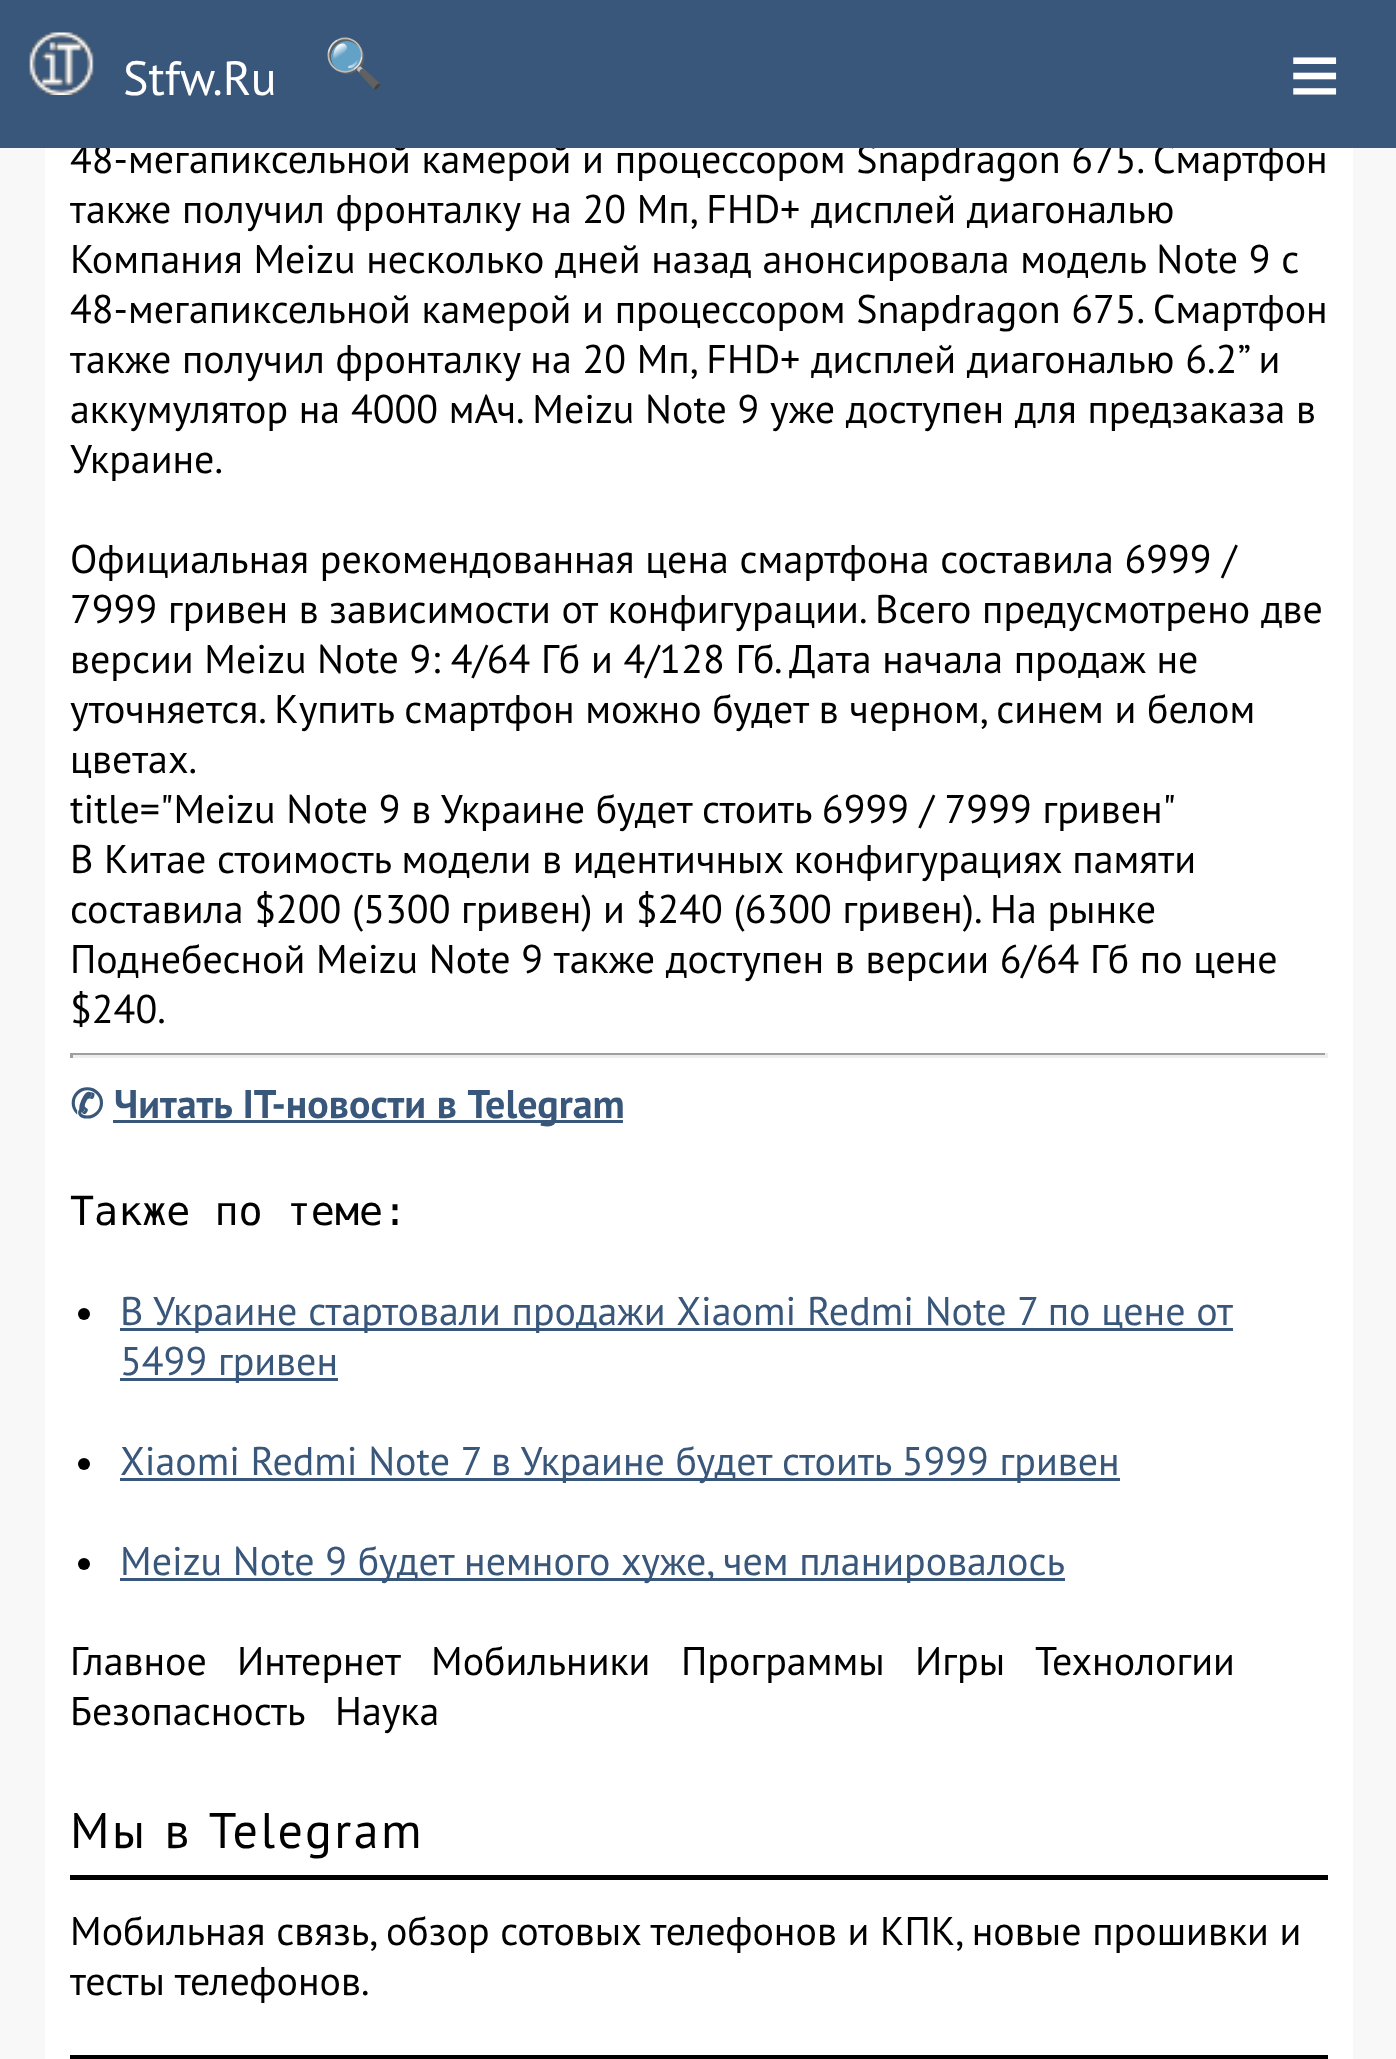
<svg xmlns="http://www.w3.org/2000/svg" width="1396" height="2059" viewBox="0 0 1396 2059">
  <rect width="100%" height="100%" fill="#f8f8f8"/>
  <rect x="45" y="148" width="1308" height="1911" fill="#ffffff"/>
  <text x="70" y="173" font-family="PT Sans" font-size="40" fill="#000000">48-мегапиксельной камерой и процессором Snapdragon 675. Смартфон</text>
  <rect x="0" y="0" width="1396" height="148" fill="#39577b"/>
  <image x="29" y="32" width="65" height="63" href="img1.png"/>
  <text x="123" y="95" font-family="PT Sans" font-size="48" fill="#ffffff">Stfw.Ru</text>
  <text x="324" y="80" font-family="Noto Color Emoji" font-size="48" fill="#ffffff">🔍</text>
  <text x="1289" y="105" font-family="Liberation Sans" font-size="88" fill="#ffffff">≡</text>
  <text x="70" y="223" font-family="PT Sans" font-size="40" fill="#000000">также получил фронталку на 20 Мп, FHD+ дисплей диагональю</text>
  <text x="70" y="273" font-family="PT Sans" font-size="40" fill="#000000">Компания Meizu несколько дней назад анонсировала модель Note 9 с</text>
  <text x="70" y="323" font-family="PT Sans" font-size="40" fill="#000000">48-мегапиксельной камерой и процессором Snapdragon 675. Смартфон</text>
  <text x="70" y="373" font-family="PT Sans" font-size="40" fill="#000000">также получил фронталку на 20 Мп, FHD+ дисплей диагональю 6.2” и</text>
  <text x="70" y="423" font-family="PT Sans" font-size="40" fill="#000000">аккумулятор на 4000 мАч. Meizu Note 9 уже доступен для предзаказа в</text>
  <text x="70" y="473" font-family="PT Sans" font-size="40" fill="#000000">Украине.</text>
  <text x="70" y="573" font-family="PT Sans" font-size="40" fill="#000000">Официальная рекомендованная цена смартфона составила 6999 /</text>
  <text x="70" y="623" font-family="PT Sans" font-size="40" fill="#000000">7999 гривен в зависимости от конфигурации. Всего предусмотрено две</text>
  <text x="70" y="673" font-family="PT Sans" font-size="40" fill="#000000">версии Meizu Note 9: 4/64 Гб и 4/128 Гб. Дата начала продаж не</text>
  <text x="70" y="723" font-family="PT Sans" font-size="40" fill="#000000">уточняется. Купить смартфон можно будет в черном, синем и белом</text>
  <text x="70" y="773" font-family="PT Sans" font-size="40" fill="#000000">цветах.</text>
  <text x="70" y="823" font-family="PT Sans" font-size="40" fill="#000000">title="Meizu Note 9 в Украине будет стоить 6999 / 7999 гривен"</text>
  <text x="70" y="873" font-family="PT Sans" font-size="40" fill="#000000">В Китае стоимость модели в идентичных конфигурациях памяти</text>
  <text x="70" y="923" font-family="PT Sans" font-size="40" fill="#000000">составила $200 (5300 гривен) и $240 (6300 гривен). На рынке</text>
  <text x="70" y="973" font-family="PT Sans" font-size="40" fill="#000000">Поднебесной Meizu Note 9 также доступен в версии 6/64 Гб по цене</text>
  <text x="70" y="1023" font-family="PT Sans" font-size="40" fill="#000000">$240.</text>
  <rect x="70" y="1053" width="1258" height="2" fill="#9f9f9f"/>
  <rect x="1325" y="1053" width="3" height="5" fill="#eeeeee"/>
  <rect x="70" y="1055" width="1258" height="3" fill="#eeeeee"/>
  <rect x="70" y="1053" width="3" height="5" fill="#9f9f9f"/>
  <text x="70" y="1118" font-family="DejaVu Sans" font-size="40" font-weight="bold" fill="#39577b">✆</text>
  <rect x="113" y="1120" width="510" height="3" fill="#39577b"/>
  <text x="114" y="1118" word-spacing="0.5" font-family="PT Sans" font-size="40" font-weight="bold" fill="#39577b">Читать IT-новости в Telegram</text>
  <text x="70" y="1225" font-family="DejaVu Sans Mono" font-size="40" fill="#000000">Также по теме:</text>
  <circle cx="84" cy="1314" r="6" fill="#000000"/>
  <rect x="120" y="1328" width="1113" height="3" fill="#39577b"/>
  <text x="120" y="1325" word-spacing="0.1" font-family="PT Sans" font-size="40" fill="#39577b">В Украине стартовали продажи Xiaomi Redmi Note 7 по цене от</text>
  <rect x="120" y="1378" width="218" height="3" fill="#39577b"/>
  <text x="120" y="1375" font-family="PT Sans" font-size="40" fill="#39577b">5499 гривен</text>
  <circle cx="84" cy="1464" r="6" fill="#000000"/>
  <rect x="120" y="1478" width="1000" height="3" fill="#39577b"/>
  <text x="120" y="1475" font-family="PT Sans" font-size="40" fill="#39577b">Xiaomi Redmi Note 7 в Украине будет стоить 5999 гривен</text>
  <circle cx="84" cy="1564" r="6" fill="#000000"/>
  <rect x="120" y="1578" width="945" height="3" fill="#39577b"/>
  <text x="120" y="1575" font-family="PT Sans" font-size="40" fill="#39577b">Meizu Note 9 будет немного хуже, чем планировалось</text>
  <text x="70" y="1675" font-family="PT Sans" font-size="40" fill="#000000">Главное</text>
  <text x="237" y="1675" font-family="PT Sans" font-size="40" fill="#000000">Интернет</text>
  <text x="431" y="1675" font-family="PT Sans" font-size="40" fill="#000000">Мобильники</text>
  <text x="681" y="1675" font-family="PT Sans" font-size="40" fill="#000000">Программы</text>
  <text x="915" y="1675" font-family="PT Sans" font-size="40" fill="#000000">Игры</text>
  <text x="1035" y="1675" font-family="PT Sans" font-size="40" fill="#000000">Технологии</text>
  <text x="70" y="1725" font-family="PT Sans" font-size="40" fill="#000000">Безопасность</text>
  <text x="335" y="1725" font-family="PT Sans" font-size="40" fill="#000000">Наука</text>
  <rect x="70" y="1875" width="1258" height="5" fill="#000000"/>
  <text x="70" y="1848" word-spacing="1" font-family="PT Sans" font-size="50" letter-spacing="2.5" fill="#000000">Мы в Telegram</text>
  <text x="70" y="1945" font-family="PT Sans" font-size="40" fill="#000000">Мобильная связь, обзор сотовых телефонов и КПК, новые прошивки и</text>
  <text x="70" y="1995" font-family="PT Sans" font-size="40" fill="#000000">тесты телефонов.</text>
  <rect x="70" y="2055" width="1258" height="4" fill="#000000"/>
</svg>
